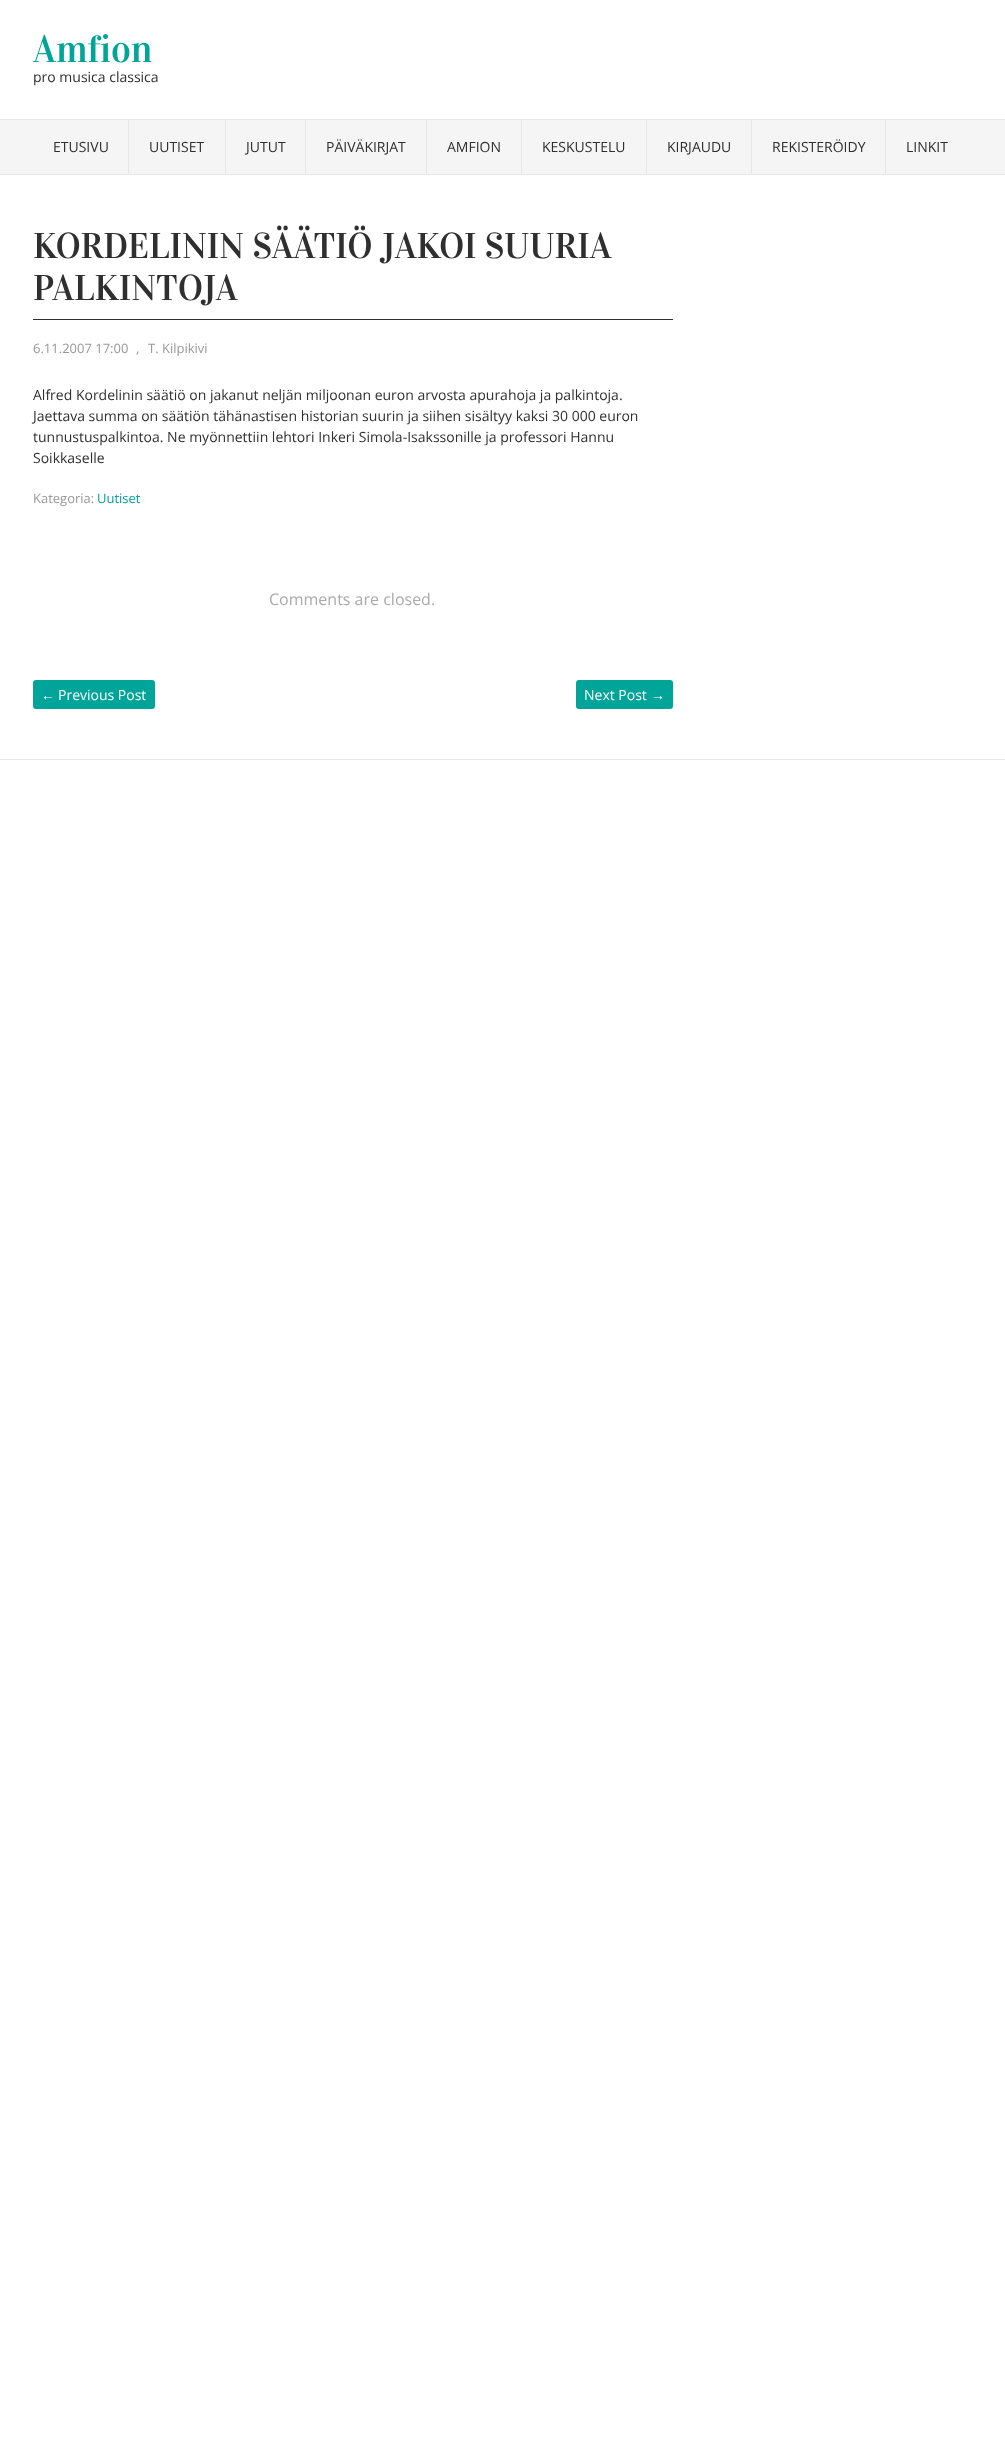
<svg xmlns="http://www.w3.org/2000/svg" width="1005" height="2458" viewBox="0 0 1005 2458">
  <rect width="100%" height="100%" fill="#ffffff"/>
  <text x="33" y="62" font-family="Vidaloka" font-size="38" fill="#00a498">Amfion</text>
  <text x="33" y="82" font-family="Open Sans" font-size="14" fill="#2f2f2f">pro musica classica</text>
  <rect x="0" y="120" width="1005" height="54" fill="#f5f5f5"/>
  <rect x="0" y="119" width="1005" height="1" fill="#e7e7e7"/>
  <rect x="0" y="174" width="1005" height="1" fill="#e7e7e7"/>
  <rect x="128" y="120" width="1" height="54" fill="#e7e7e7"/>
  <text x="53" y="152" font-family="Open Sans" font-size="14" fill="#2f2f2f">ETUSIVU</text>
  <rect x="225" y="120" width="1" height="54" fill="#e7e7e7"/>
  <text x="149" y="152" font-family="Open Sans" font-size="14" fill="#2f2f2f">UUTISET</text>
  <rect x="305" y="120" width="1" height="54" fill="#e7e7e7"/>
  <text x="246" y="152" font-family="Open Sans" font-size="14" fill="#2f2f2f">JUTUT</text>
  <rect x="426" y="120" width="1" height="54" fill="#e7e7e7"/>
  <text x="326" y="152" font-family="Open Sans" font-size="14" fill="#2f2f2f">PÄIVÄKIRJAT</text>
  <rect x="521" y="120" width="1" height="54" fill="#e7e7e7"/>
  <text x="447" y="152" font-family="Open Sans" font-size="14" fill="#2f2f2f">AMFION</text>
  <rect x="646" y="120" width="1" height="54" fill="#e7e7e7"/>
  <text x="542" y="152" font-family="Open Sans" font-size="14" fill="#2f2f2f">KESKUSTELU</text>
  <rect x="751" y="120" width="1" height="54" fill="#e7e7e7"/>
  <text x="667" y="152" font-family="Open Sans" font-size="14" fill="#2f2f2f">KIRJAUDU</text>
  <rect x="885" y="120" width="1" height="54" fill="#e7e7e7"/>
  <text x="772" y="152" font-family="Open Sans" font-size="14" fill="#2f2f2f">REKISTERÖIDY</text>
  <text x="906" y="152" font-family="Open Sans" font-size="14" fill="#2f2f2f">LINKIT</text>
  <rect x="33" y="319" width="640" height="1" fill="#2f2f2f"/>
  <text x="33" y="258" font-family="Vidaloka" font-size="36" fill="#2f2f2f">KORDELININ SÄÄTIÖ JAKOI SUURIA</text>
  <text x="33" y="300" font-family="Vidaloka" font-size="36" fill="#2f2f2f">PALKINTOJA</text>
  <text x="33" y="353" font-family="Open Sans" font-size="13" fill="#999999">6.11.2007 17:00</text>
  <text x="136" y="353" font-family="Open Sans" font-size="13" fill="#999999">,</text>
  <text x="148" y="353" font-family="Open Sans" font-size="13" fill="#999999">T. Kilpikivi</text>
  <text x="33" y="400" font-family="Open Sans" font-size="14" fill="#2f2f2f">Alfred Kordelinin säätiö on jakanut neljän miljoonan euron arvosta apurahoja ja palkintoja.</text>
  <text x="33" y="421" font-family="Open Sans" font-size="14" fill="#2f2f2f">Jaettava summa on säätiön tähänastisen historian suurin ja siihen sisältyy kaksi 30 000 euron</text>
  <text x="33" y="442" font-family="Open Sans" font-size="14" fill="#2f2f2f">tunnustuspalkintoa. Ne myönnettiin lehtori Inkeri Simola-Isakssonille ja professori Hannu</text>
  <text x="33" y="463" font-family="Open Sans" font-size="14" fill="#2f2f2f">Soikkaselle</text>
  <text x="33" y="503" font-family="Open Sans" font-size="13" fill="#999999">Kategoria:</text>
  <text x="97" y="503" font-family="Open Sans" font-size="13" fill="#00a498">Uutiset</text>
  <text x="269" y="605" font-family="Open Sans" font-size="16" fill="#aaaaaa">Comments are closed.</text>
  <rect x="33" y="680" width="122" height="29" rx="3" fill="#00a498"/>
  <text x="41" y="700" font-family="Liberation Sans" font-size="14" fill="#ffffff">←</text>
  <text x="58" y="700" font-family="Open Sans" font-size="14" fill="#ffffff">Previous Post</text>
  <rect x="576" y="680" width="97" height="29" rx="3" fill="#00a498"/>
  <text x="584" y="700" font-family="Open Sans" font-size="14" fill="#ffffff">Next Post</text>
  <text x="651" y="700" font-family="Liberation Sans" font-size="14" fill="#ffffff">→</text>
  <rect x="0" y="759" width="1005" height="1" fill="#e7e7e7"/>
</svg>
